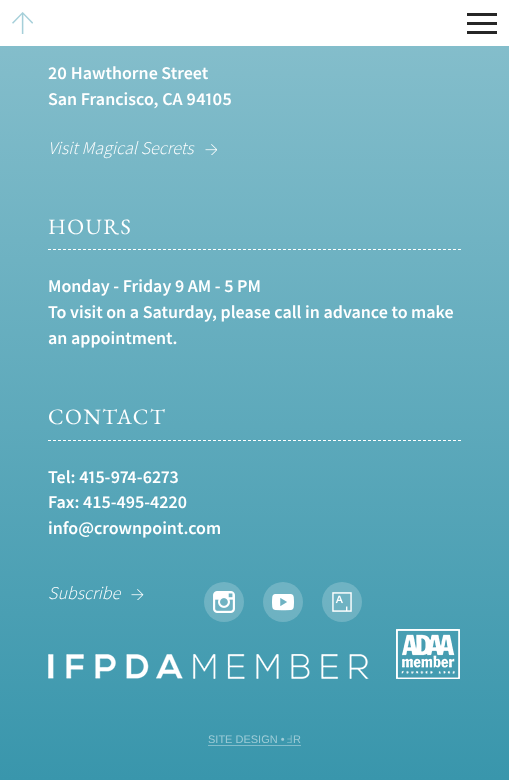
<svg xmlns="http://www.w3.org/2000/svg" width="509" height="780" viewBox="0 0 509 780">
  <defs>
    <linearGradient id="g1" gradientUnits="userSpaceOnUse" x1="254" y1="-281" x2="255" y2="780"><stop offset="0" stop-color="#a5cfd9"/><stop offset="1" stop-color="#3996ac"/></linearGradient>
  </defs>
  <rect width="100%" height="100%" fill="#ffffff"/>
  <image x="12" y="12" width="21" height="22" href="img1.png"/>
  <rect x="467" y="22" width="30" height="3" fill="#262626"/>
  <rect x="467" y="13" width="30" height="3" fill="#262626"/>
  <rect x="467" y="31" width="30" height="3" fill="#262626"/>
  <rect x="0" y="46" width="509" height="734" fill="url(#g1)"/>
  <text x="48" y="79" font-family="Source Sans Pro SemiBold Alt" font-size="18" font-weight="600" fill="#ffffff">20 Hawthorne Street</text>
  <text x="48" y="105" font-family="Source Sans Pro SemiBold Alt" font-size="18" font-weight="600" fill="#ffffff">San Francisco, CA 94105</text>
  <text x="48" y="154" font-family="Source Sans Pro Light" font-size="18" font-weight="300" font-style="italic" fill="#ffffff">Visit Magical Secrets</text>
  <image x="205" y="144" width="12" height="11" href="img2.png"/>
  <path d="M48 249.5H461" fill="none" stroke="#ffffff" stroke-dasharray="3 2"/>
  <text x="48" y="234" font-family="EB Garamond" font-size="22" letter-spacing="1.5" fill="#ffffff">HOURS</text>
  <text x="48" y="292" font-family="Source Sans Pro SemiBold" font-size="18" font-weight="600" fill="#ffffff">Monday - Friday 9 AM - 5 PM</text>
  <text x="48" y="318" font-family="Source Sans Pro SemiBold" font-size="18" font-weight="600" fill="#ffffff">To visit on a Saturday, please call in advance to make</text>
  <text x="48" y="344" font-family="Source Sans Pro SemiBold" font-size="18" font-weight="600" fill="#ffffff">an appointment.</text>
  <path d="M48 440.5H461" fill="none" stroke="#ffffff" stroke-dasharray="3 2"/>
  <text x="48" y="424" font-family="EB Garamond" font-size="22" letter-spacing="1.5" fill="#ffffff">CONTACT</text>
  <text x="48" y="483" font-family="Source Sans Pro SemiBold" font-size="18" font-weight="600" fill="#ffffff">Tel:</text>
  <text x="79" y="483" font-family="Source Sans Pro SemiBold Alt" font-size="18" font-weight="600" fill="#ffffff">415-974-6273</text>
  <text x="48" y="508" font-family="Source Sans Pro SemiBold" font-size="18" font-weight="600" fill="#ffffff">Fax: 415-495-4220</text>
  <text x="48" y="534" font-family="Source Sans Pro SemiBold" font-size="18" font-weight="600" fill="#ffffff">info@crownpoint.com</text>
  <text x="48" y="599" font-family="Source Sans Pro Light" font-size="18" font-weight="300" font-style="italic" fill="#ffffff">Subscribe</text>
  <image x="131" y="589" width="13" height="11" href="img3.png"/>
  <circle cx="224" cy="602" r="20" fill="#ffffff" fill-opacity="0.2"/>
  <image x="213" y="591" width="22" height="22" href="img4.png"/>
  <circle cx="283" cy="602" r="20" fill="#ffffff" fill-opacity="0.2"/>
  <image x="272" y="594" width="22" height="17" href="img5.png"/>
  <circle cx="342" cy="602" r="20" fill="#ffffff" fill-opacity="0.2"/>
  <image x="332" y="592" width="20" height="20" href="img6.png"/>
  <image x="48" y="654" width="321" height="25" href="img7.png"/>
  <image x="396" y="629" width="64" height="50" href="img8.png"/>
  <text x="208" y="743" font-family="Liberation Sans" font-size="11" fill="#9eccd7">SITE DESIGN •</text>
  <rect x="208" y="745" width="93" height="1" fill="#83bdcb"/>
  <text x="287" y="743" font-family="Noto Sans" font-size="11" font-weight="300" fill="#9eccd7">Ⅎ</text>
  <text x="293" y="743" font-family="Liberation Sans" font-size="11" fill="#9eccd7">R</text>
</svg>
